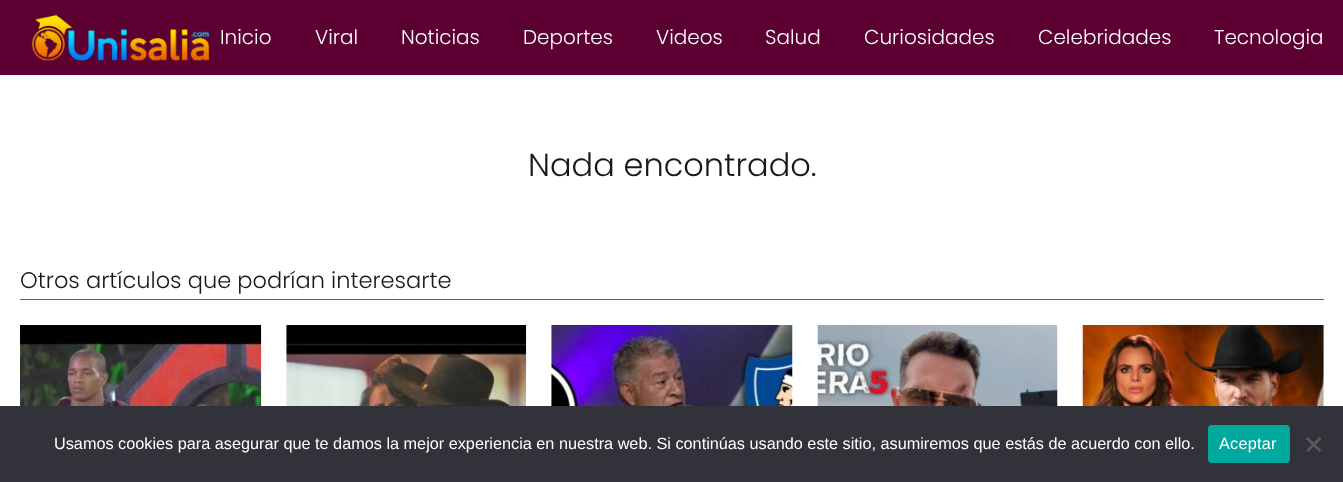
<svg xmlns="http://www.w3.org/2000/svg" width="1343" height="482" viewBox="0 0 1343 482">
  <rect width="100%" height="100%" fill="#ffffff"/>
  <rect x="0" y="0" width="1343" height="75" fill="#5b0030"/>
  <image x="31" y="15" width="179" height="46" href="img1.png"/>
  <text x="220" y="44" font-family="Poppins" font-size="20" font-weight="300" fill="#ffffff">Inicio</text>
  <text x="315" y="44" font-family="Poppins" font-size="20" font-weight="300" fill="#ffffff">Viral</text>
  <text x="401" y="44" font-family="Poppins" font-size="20" font-weight="300" fill="#ffffff">Noticias</text>
  <text x="523" y="44" font-family="Poppins" font-size="20" font-weight="300" fill="#ffffff">Deportes</text>
  <text x="656" y="44" font-family="Poppins" font-size="20" font-weight="300" fill="#ffffff">Videos</text>
  <text x="765" y="44" font-family="Poppins" font-size="20" font-weight="300" fill="#ffffff">Salud</text>
  <text x="864" y="44" font-family="Poppins" font-size="20" font-weight="300" fill="#ffffff">Curiosidades</text>
  <text x="1038" y="44" font-family="Poppins" font-size="20" font-weight="300" fill="#ffffff">Celebridades</text>
  <text x="1214" y="44" font-family="Poppins" font-size="20" font-weight="300" fill="#ffffff">Tecnologia</text>
  <text x="528" y="176" font-family="Poppins" font-size="32" font-weight="300" fill="#181818">Nada encontrado.</text>
  <rect x="20" y="299" width="1304" height="1" fill="#2471a3"/>
  <text x="20" y="288" font-family="Poppins" font-size="22.5" font-weight="300" fill="#181818">Otros artículos que podrían interesarte</text>
  <image x="20" y="325" width="242" height="81" href="img2.png"/>
  <image x="286" y="325" width="241" height="81" href="img3.png"/>
  <image x="551" y="325" width="242" height="81" href="img4.png"/>
  <image x="817" y="325" width="241" height="81" href="img5.png"/>
  <image x="1082" y="325" width="242" height="81" href="img6.png"/>
  <rect x="0" y="406" width="1343" height="76" fill="#32323a"/>
  <text x="54" y="449" font-family="Liberation Sans" font-size="16.25" fill="#ffffff">Usamos cookies para asegurar que te damos la mejor experiencia en nuestra web. Si continúas usando este sitio, asumiremos que estás de acuerdo con ello.</text>
  <rect x="1208" y="425" width="82" height="38" rx="4" fill="#00a99d"/>
  <text x="1219" y="449" font-family="Liberation Sans" font-size="16.25" letter-spacing="0.25" fill="#ffffff">Aceptar</text>
  <path d="M1319.5 437L1321.5 439L1308 452L1306 450.5Z" fill="#59595d"/>
  <path d="M1306 439L1308 437L1321.5 450.5L1319.5 452Z" fill="#59595d"/>
</svg>
